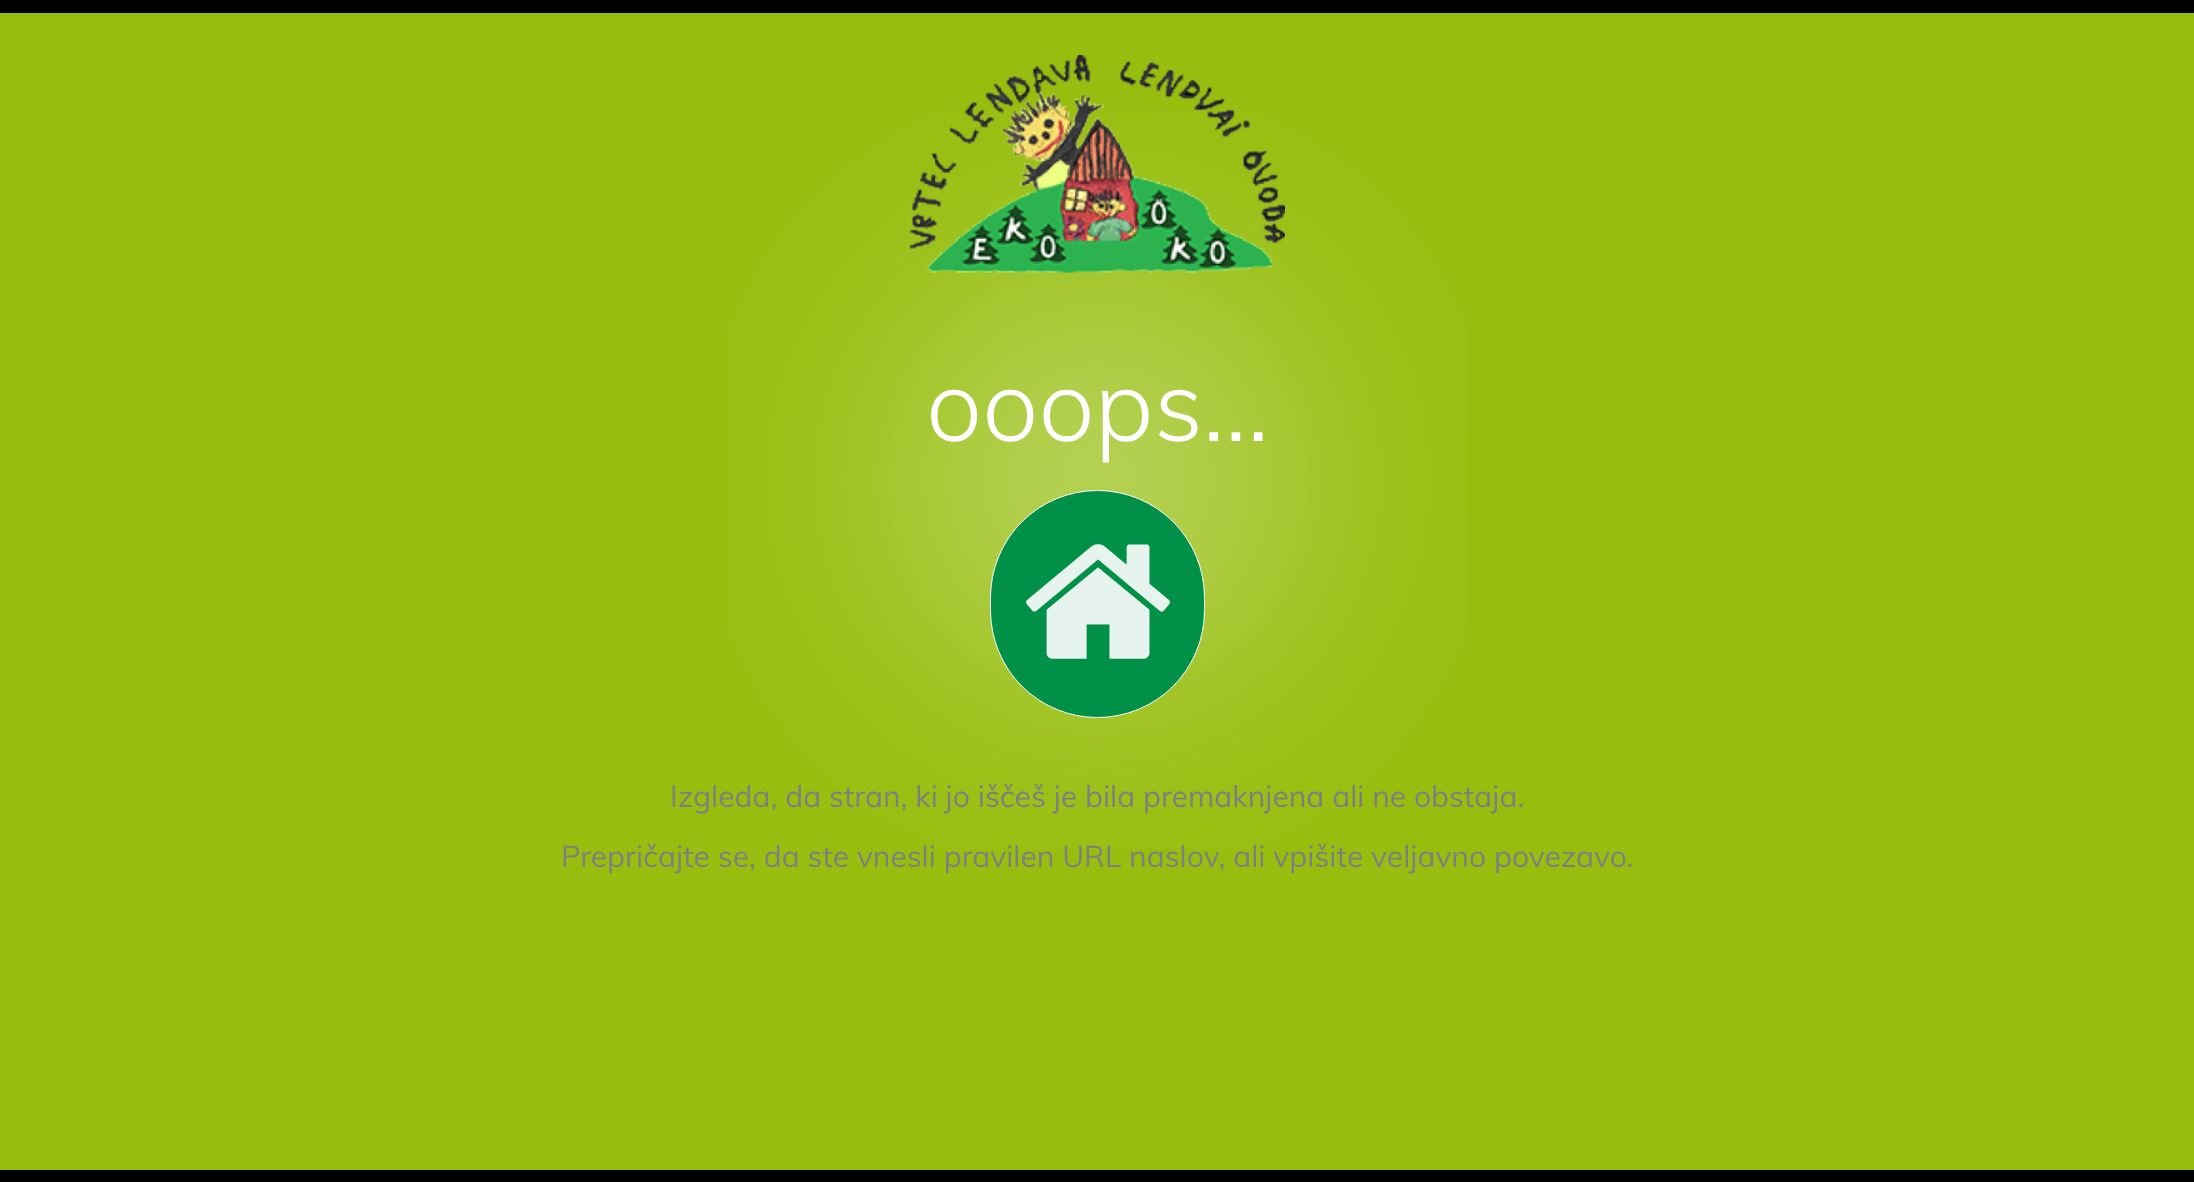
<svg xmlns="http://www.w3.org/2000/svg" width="2194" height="1182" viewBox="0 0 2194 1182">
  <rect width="100%" height="100%" fill="#97be0e"/>
  <image x="728" y="109" width="740" height="740" href="img1.png"/>
  <rect x="0" y="1170" width="2194" height="12" fill="#000000"/>
  <rect x="0" y="0" width="2194" height="13" fill="#000000"/>
  <image x="910" y="54" width="375" height="219" href="img2.png"/>
  <text x="926" y="441" font-family="Muli" font-size="100" font-weight="300" fill="#ffffff">ooops...</text>
  <rect x="990.5" y="490.5" width="214" height="227" rx="107" fill="#009048" stroke="#ffffff"/>
  <image x="1026" y="544" width="144" height="115" href="img3.png"/>
  <text x="670" y="807" font-family="Muli" font-size="30" fill="#7f7f7f">Izgleda, da stran, ki jo iščeš je bila premaknjena ali ne obstaja.</text>
  <text x="561" y="867" font-family="Muli" font-size="30" fill="#7f7f7f">Prepričajte se, da ste vnesli pravilen URL naslov, ali vpišite veljavno povezavo.</text>
</svg>
